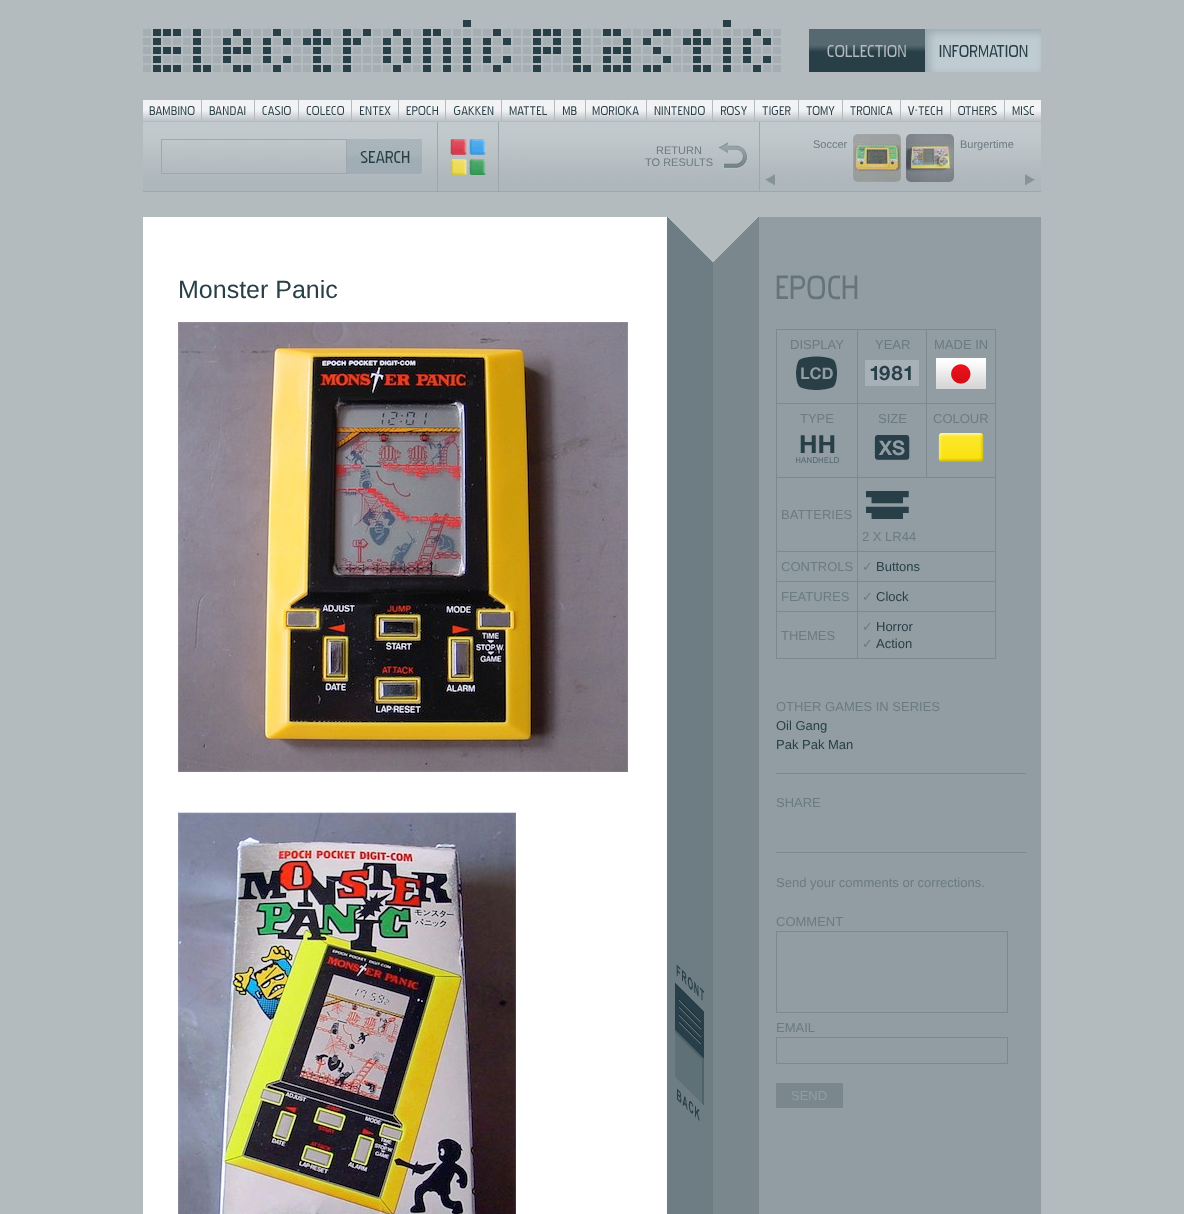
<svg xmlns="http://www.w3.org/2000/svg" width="1184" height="1214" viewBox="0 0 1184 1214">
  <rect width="100%" height="100%" fill="#b3bbbf"/>
  <image x="143" y="217" width="898" height="997" href="img1.png"/>
  <image x="143" y="20" width="638" height="52" href="img2.png"/>
  <image x="809" y="29" width="116" height="43" href="img3.png"/>
  <image x="925" y="29" width="116" height="43" href="img4.png"/>
  <image x="143" y="100" width="898" height="21" href="img5.png"/>
  <image x="143" y="122" width="898" height="69" href="img6.png"/>
  <rect x="143" y="191" width="898" height="1" fill="#9da8ad"/>
  <rect x="437" y="122" width="1" height="69" fill="#9da8ad"/>
  <rect x="161.5" y="139.5" width="185" height="34" fill="none" stroke="#9ea8ad"/>
  <image x="347" y="139" width="75" height="35" href="img7.png"/>
  <rect x="498" y="122" width="1" height="69" fill="#9da8ad"/>
  <image x="450" y="139" width="36" height="36" href="img8.png"/>
  <image x="719" y="141" width="28" height="28" href="img9.png"/>
  <text x="656" y="154" font-family="Liberation Sans" font-size="11" fill="#6b7b82">RETURN</text>
  <text x="645" y="166" font-family="Liberation Sans" font-size="11" fill="#6b7b82">TO RESULTS</text>
  <image x="765" y="174" width="270" height="12" href="img10.png"/>
  <rect x="759" y="122" width="1" height="69" fill="#9da8ad"/>
  <text x="813" y="148" font-family="Liberation Sans" font-size="11" fill="#6b7b82">Soccer</text>
  <image x="853" y="134" width="48" height="48" href="img11.png"/>
  <image x="906" y="134" width="48" height="48" href="img12.png"/>
  <text x="960" y="148" font-family="Liberation Sans" font-size="11" fill="#6b7b82">Burgertime</text>
  <text x="178" y="298" font-family="Liberation Sans" font-size="25" fill="#283f48">Monster Panic</text>
  <image x="178" y="322" width="450" height="450" href="img13.png"/>
  <image x="178" y="812" width="338" height="402" href="img14.png"/>
  <image x="675" y="964" width="29" height="158" href="img15.png"/>
  <image x="776" y="275" width="82" height="25" href="img16.png"/>
  <rect x="926" y="329" width="70" height="1" fill="#7c8a90"/>
  <rect x="926" y="403" width="70" height="1" fill="#7c8a90"/>
  <rect x="857" y="477" width="139" height="1" fill="#7c8a90"/>
  <rect x="926" y="403" width="1" height="75" fill="#7c8a90"/>
  <rect x="857" y="403" width="70" height="1" fill="#7c8a90"/>
  <rect x="926" y="329" width="1" height="75" fill="#7c8a90"/>
  <rect x="857" y="329" width="70" height="1" fill="#7c8a90"/>
  <rect x="857" y="551" width="139" height="1" fill="#7c8a90"/>
  <rect x="857" y="581" width="139" height="1" fill="#7c8a90"/>
  <rect x="857" y="611" width="139" height="1" fill="#7c8a90"/>
  <rect x="995" y="611" width="1" height="48" fill="#7c8a90"/>
  <rect x="857" y="658" width="139" height="1" fill="#7c8a90"/>
  <rect x="857" y="611" width="1" height="48" fill="#7c8a90"/>
  <rect x="776" y="611" width="82" height="1" fill="#7c8a90"/>
  <rect x="857" y="581" width="1" height="31" fill="#7c8a90"/>
  <rect x="776" y="581" width="82" height="1" fill="#7c8a90"/>
  <rect x="857" y="551" width="1" height="31" fill="#7c8a90"/>
  <rect x="776" y="551" width="82" height="1" fill="#7c8a90"/>
  <rect x="857" y="477" width="1" height="75" fill="#7c8a90"/>
  <rect x="776" y="477" width="82" height="1" fill="#7c8a90"/>
  <rect x="857" y="403" width="1" height="75" fill="#7c8a90"/>
  <rect x="776" y="403" width="82" height="1" fill="#7c8a90"/>
  <rect x="857" y="329" width="1" height="75" fill="#7c8a90"/>
  <rect x="776" y="329" width="82" height="1" fill="#7c8a90"/>
  <rect x="776" y="658" width="82" height="1" fill="#7c8a90"/>
  <rect x="776" y="611" width="1" height="48" fill="#7c8a90"/>
  <rect x="776" y="581" width="1" height="31" fill="#7c8a90"/>
  <rect x="776" y="551" width="1" height="31" fill="#7c8a90"/>
  <rect x="776" y="477" width="1" height="75" fill="#7c8a90"/>
  <rect x="776" y="403" width="1" height="75" fill="#7c8a90"/>
  <rect x="776" y="329" width="1" height="75" fill="#7c8a90"/>
  <text x="790" y="349" font-family="Liberation Sans" font-size="13" fill="#6b7b82">DISPLAY</text>
  <image x="796" y="356" width="41" height="34" href="img17.png"/>
  <text x="875" y="349" font-family="Liberation Sans" font-size="13" fill="#6b7b82">YEAR</text>
  <image x="865" y="360" width="54" height="26" href="img18.png"/>
  <rect x="995" y="581" width="1" height="31" fill="#7c8a90"/>
  <rect x="995" y="551" width="1" height="31" fill="#7c8a90"/>
  <rect x="995" y="477" width="1" height="75" fill="#7c8a90"/>
  <rect x="995" y="403" width="1" height="75" fill="#7c8a90"/>
  <rect x="995" y="329" width="1" height="75" fill="#7c8a90"/>
  <text x="934" y="349" font-family="Liberation Sans" font-size="13" fill="#6b7b82">MADE IN</text>
  <image x="936" y="358" width="50" height="31" href="img19.png"/>
  <text x="800" y="423" font-family="Liberation Sans" font-size="13" fill="#6b7b82">TYPE</text>
  <image x="796" y="435" width="43" height="28" href="img20.png"/>
  <text x="878" y="423" font-family="Liberation Sans" font-size="13" fill="#6b7b82">SIZE</text>
  <image x="874" y="435" width="36" height="25" href="img21.png"/>
  <text x="933" y="423" font-family="Liberation Sans" font-size="13" fill="#6b7b82">COLOUR</text>
  <image x="938" y="433" width="46" height="29" href="img22.png"/>
  <text x="781" y="519" font-family="Liberation Sans" font-size="13" fill="#6b7b82">BATTERIES</text>
  <image x="866" y="491" width="43" height="28" href="img23.png"/>
  <text x="862" y="541" font-family="Liberation Sans" font-size="13" fill="#6b7b82">2 X LR44</text>
  <text x="781" y="571" font-family="Liberation Sans" font-size="13" fill="#6b7b82">CONTROLS</text>
  <text x="862" y="571" font-family="DejaVu Sans" font-size="13" fill="#6b7b82">✓</text>
  <text x="876" y="571" font-family="Liberation Sans" font-size="13" fill="#283f48">Buttons</text>
  <text x="781" y="601" font-family="Liberation Sans" font-size="13" fill="#6b7b82">FEATURES</text>
  <text x="862" y="601" font-family="DejaVu Sans" font-size="13" fill="#6b7b82">✓</text>
  <text x="876" y="601" font-family="Liberation Sans" font-size="13" fill="#283f48">Clock</text>
  <text x="781" y="640" font-family="Liberation Sans" font-size="13" fill="#6b7b82">THEMES</text>
  <text x="862" y="631" font-family="DejaVu Sans" font-size="13" fill="#6b7b82">✓</text>
  <text x="876" y="631" font-family="Liberation Sans" font-size="13" fill="#283f48">Horror</text>
  <text x="862" y="648" font-family="DejaVu Sans" font-size="13" fill="#6b7b82">✓</text>
  <text x="876" y="648" font-family="Liberation Sans" font-size="13" fill="#283f48">Action</text>
  <text x="776" y="711" font-family="Liberation Sans" font-size="13" fill="#6b7b82">OTHER GAMES IN SERIES</text>
  <text x="776" y="730" font-family="Liberation Sans" font-size="13" fill="#283f48">Oil Gang</text>
  <text x="776" y="749" font-family="Liberation Sans" font-size="13" fill="#283f48">Pak Pak Man</text>
  <rect x="776" y="773" width="250" height="1" fill="#7c8a90"/>
  <text x="776" y="807" font-family="Liberation Sans" font-size="13" fill="#6b7b82">SHARE</text>
  <rect x="776" y="852" width="250" height="1" fill="#7c8a90"/>
  <text x="776" y="887" font-family="Liberation Sans" font-size="13" fill="#6b7b82">Send your comments or corrections.</text>
  <text x="776" y="926" font-family="Liberation Sans" font-size="13" fill="#6b7b82">COMMENT</text>
  <rect x="776.5" y="931.5" width="231" height="81" fill="none" stroke="#7c8a90"/>
  <text x="776" y="1032" font-family="Liberation Sans" font-size="13" fill="#6b7b82">EMAIL</text>
  <rect x="776.5" y="1037.5" width="231" height="26" fill="none" stroke="#7c8a90"/>
  <rect x="776" y="1083" width="67" height="25" fill="#7a888e"/>
  <text x="791" y="1100" font-family="Liberation Sans" font-size="13" fill="#919da2">SEND</text>
</svg>
